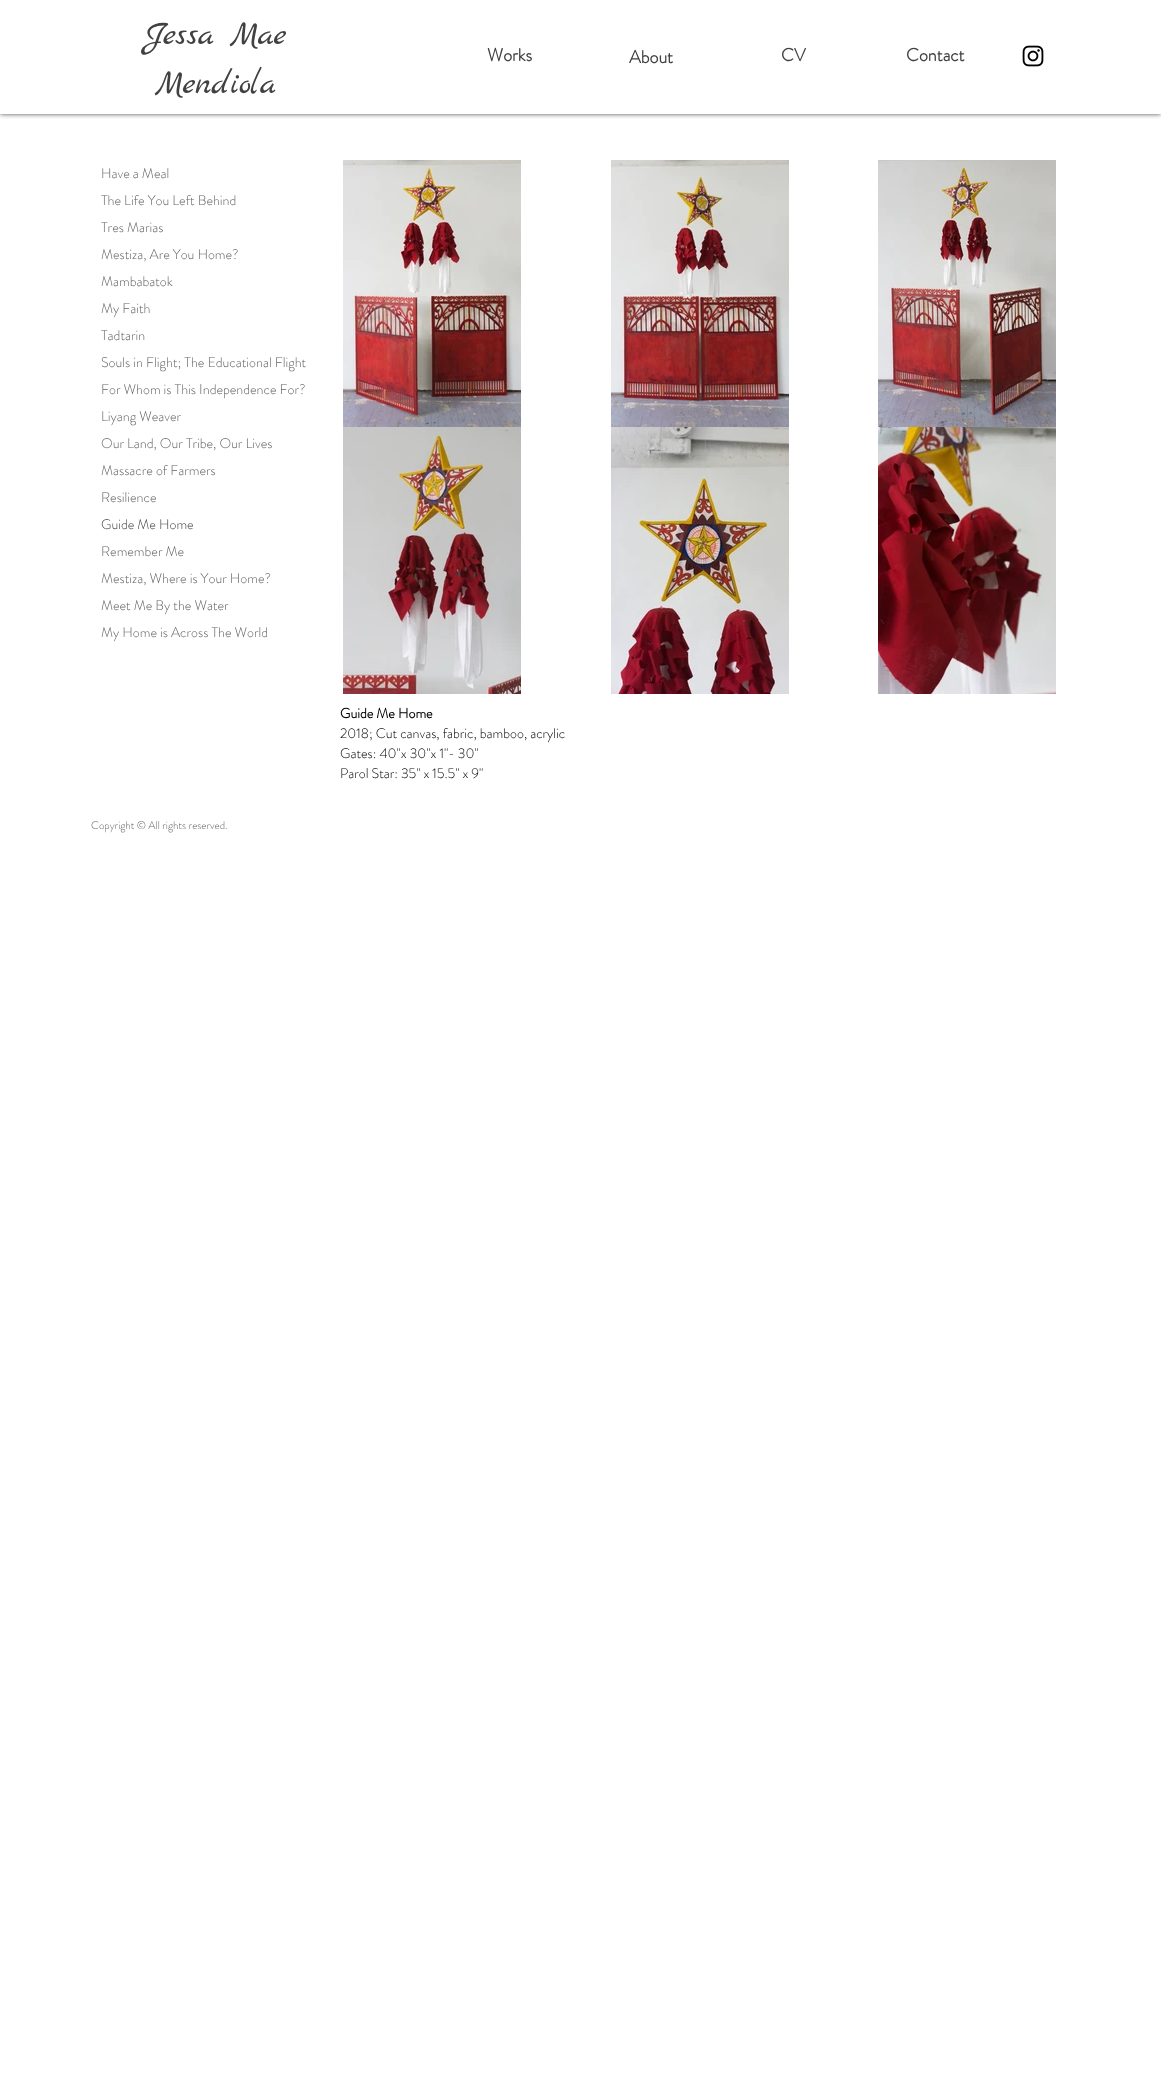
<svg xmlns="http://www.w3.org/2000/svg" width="1161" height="2093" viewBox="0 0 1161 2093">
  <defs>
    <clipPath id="clip1"><rect x="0" y="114" width="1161" height="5"/></clipPath>
    <filter id="blur1" x="-50%" y="-200%" width="200%" height="500%"><feGaussianBlur stdDeviation="2.5"/></filter>
  </defs>
  <rect width="100%" height="100%" fill="#ffffff"/>
  <g clip-path="url(#clip1)">
    <rect x="0" y="0" width="1161" height="114" fill="#000000" fill-opacity="0.7" filter="url(#blur1)"/>
  </g>
  <text x="144" y="44" font-family="Marck Script" font-size="34" fill="#414141">Jessa Mae</text>
  <text x="155" y="93" font-family="Marck Script" font-size="34" fill="#414141">Mendiola</text>
  <text x="487" y="61" font-family="'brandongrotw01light'" font-size="18" font-weight="bold" fill="#414141">Works</text>
  <text x="629" y="63" font-family="'brandongrotw01light'" font-size="18" font-weight="bold" fill="#414141">About</text>
  <text x="781" y="61" font-family="'brandongrotw01light'" font-size="18" font-weight="bold" fill="#414141">CV</text>
  <text x="906" y="61" font-family="'brandongrotw01light'" font-size="18" font-weight="bold" fill="#414141">Contact</text>
  <image x="1022" y="45" width="22" height="22" href="img1.png"/>
  <text x="101" y="178" font-family="'brandongrotw01light'" font-size="14" font-weight="300" fill="#636363">Have a Meal</text>
  <text x="101" y="205" font-family="'brandongrotw01light'" font-size="14" font-weight="300" fill="#636363">The Life You Left Behind</text>
  <text x="101" y="232" font-family="'brandongrotw01light'" font-size="14" font-weight="300" fill="#636363">Tres Marias</text>
  <text x="101" y="259" font-family="'brandongrotw01light'" font-size="14" font-weight="300" fill="#636363">Mestiza, Are You Home?</text>
  <text x="101" y="286" font-family="'brandongrotw01light'" font-size="14" font-weight="300" fill="#636363">Mambabatok</text>
  <text x="101" y="313" font-family="'brandongrotw01light'" font-size="14" font-weight="300" fill="#636363">My Faith</text>
  <text x="101" y="340" font-family="'brandongrotw01light'" font-size="14" font-weight="300" fill="#636363">Tadtarin</text>
  <text x="101" y="367" font-family="'brandongrotw01light'" font-size="14" font-weight="300" fill="#636363">Souls in Flight; The Educational Flight</text>
  <text x="101" y="394" font-family="'brandongrotw01light'" font-size="14" font-weight="300" fill="#636363">For Whom is This Independence For?</text>
  <text x="101" y="421" font-family="'brandongrotw01light'" font-size="14" font-weight="300" fill="#636363">Liyang Weaver</text>
  <text x="101" y="448" font-family="'brandongrotw01light'" font-size="14" font-weight="300" fill="#636363">Our Land, Our Tribe, Our Lives</text>
  <text x="101" y="475" font-family="'brandongrotw01light'" font-size="14" font-weight="300" fill="#636363">Massacre of Farmers</text>
  <text x="101" y="502" font-family="'brandongrotw01light'" font-size="14" font-weight="300" fill="#636363">Resilience</text>
  <text x="101" y="529" font-family="'brandongrotw01light'" font-size="14" font-weight="300" fill="#414141">Guide Me Home</text>
  <text x="101" y="556" font-family="'brandongrotw01light'" font-size="14" font-weight="300" fill="#636363">Remember Me</text>
  <text x="101" y="583" font-family="'brandongrotw01light'" font-size="14" font-weight="300" fill="#636363">Mestiza, Where is Your Home?</text>
  <text x="101" y="610" font-family="'brandongrotw01light'" font-size="14" font-weight="300" fill="#636363">Meet Me By the Water</text>
  <text x="101" y="637" font-family="'brandongrotw01light'" font-size="14" font-weight="300" fill="#636363">My Home is Across The World</text>
  <image x="343" y="160" width="178" height="267" href="img2.png"/>
  <image x="611" y="160" width="178" height="267" href="img3.png"/>
  <image x="878" y="160" width="178" height="267" href="img4.png"/>
  <image x="343" y="427" width="178" height="267" href="img5.png"/>
  <image x="611" y="427" width="178" height="267" href="img6.png"/>
  <image x="878" y="427" width="178" height="267" href="img7.png"/>
  <text x="340" y="718" font-family="'brandongrotw01light'" font-size="14" font-weight="bold" fill="#000000">Guide Me Home</text>
  <text x="340" y="738" font-family="'brandongrotw01light'" font-size="14" font-weight="300" fill="#000000">2018; Cut canvas, fabric, bamboo, acrylic</text>
  <text x="340" y="758" font-family="'brandongrotw01light'" font-size="14" font-weight="300" fill="#000000">Gates: 40"x 30"x 1"- 30"</text>
  <text x="340" y="778" font-family="'brandongrotw01light'" font-size="14" font-weight="300" fill="#000000">Parol Star: 35" x 15.5" x 9"</text>
  <text x="91" y="829" font-family="'brandongrotw01light'" font-size="11" font-weight="300" fill="#636363">Copyright © All rights reserved.</text>
</svg>
